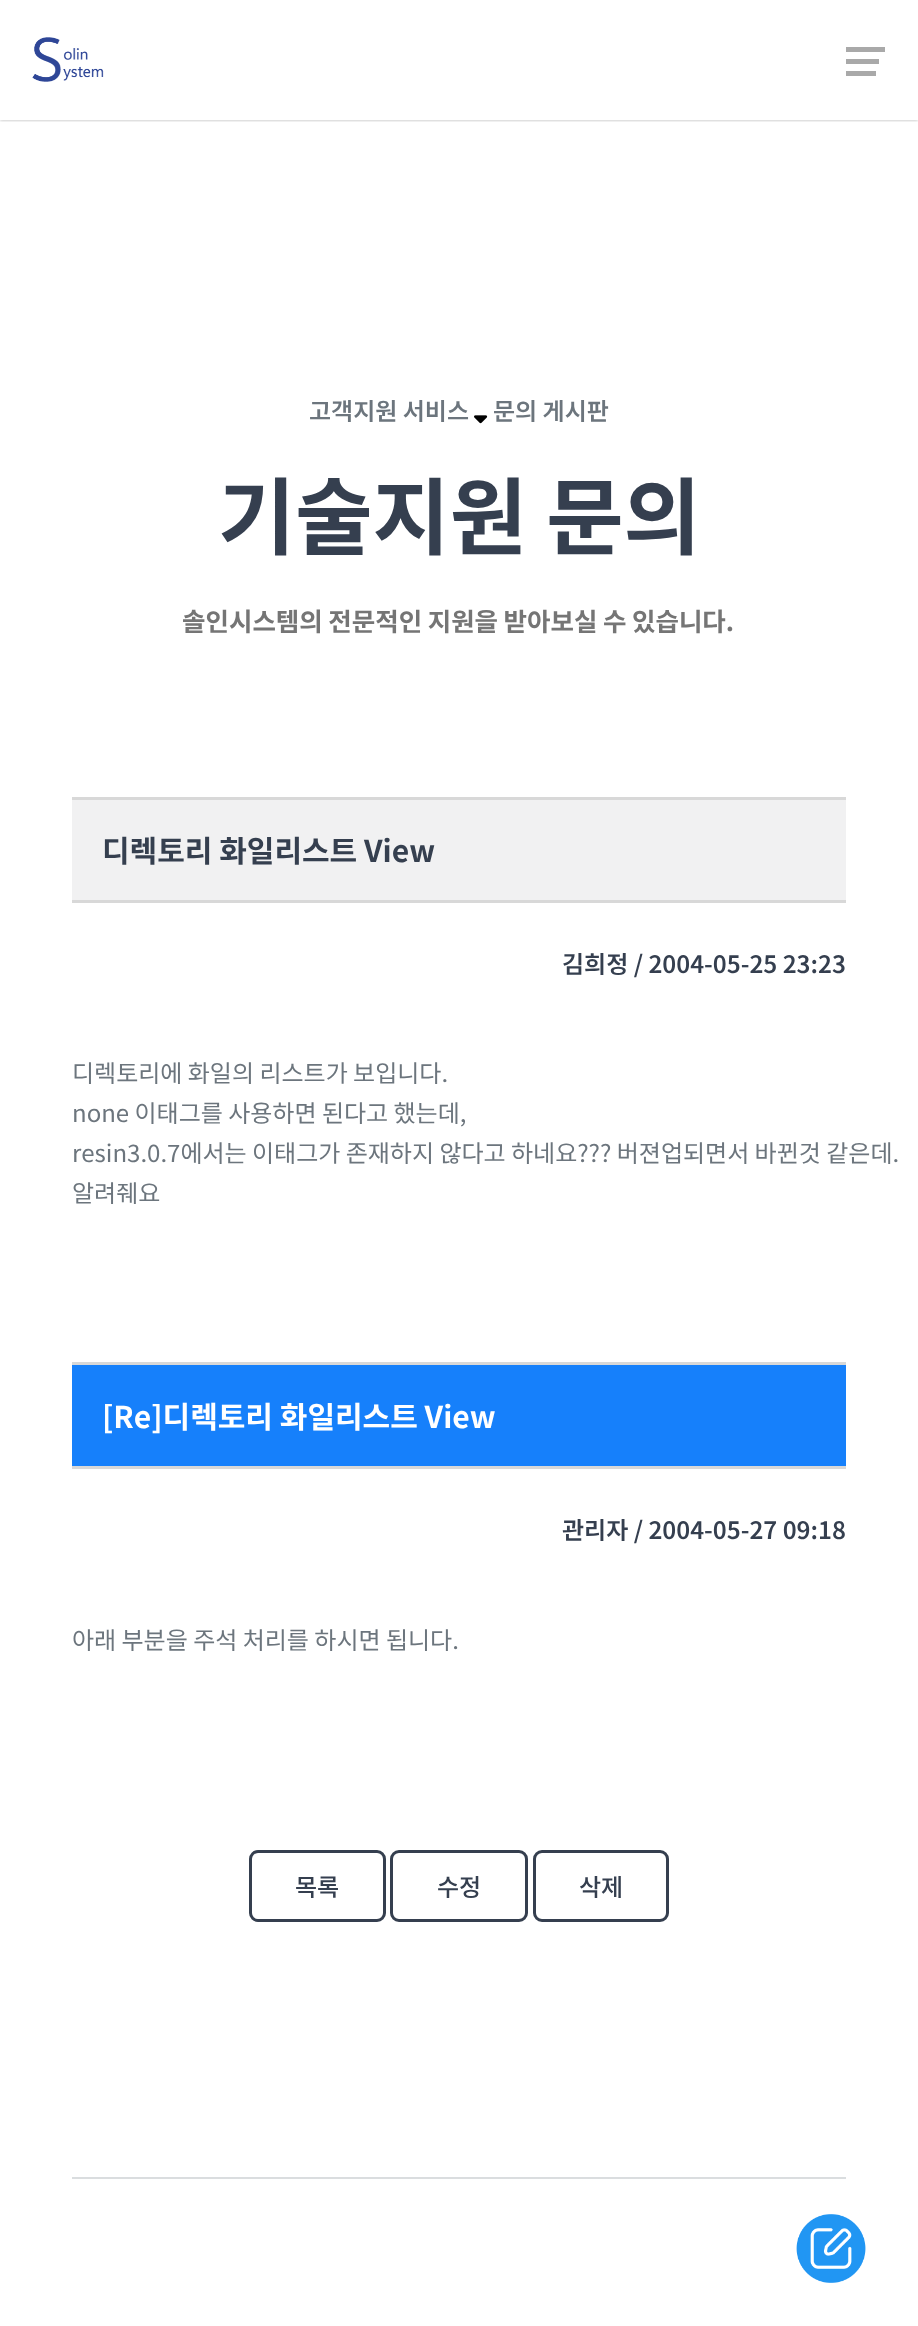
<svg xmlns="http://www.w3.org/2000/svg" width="918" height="2326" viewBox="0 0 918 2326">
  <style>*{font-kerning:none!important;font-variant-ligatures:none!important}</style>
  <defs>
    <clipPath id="clip1"><rect x="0" y="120" width="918" height="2"/></clipPath>
    <filter id="blur1" x="-50%" y="-200%" width="200%" height="500%"><feGaussianBlur stdDeviation="1.5"/></filter>
  </defs>
  <rect width="100%" height="100%" fill="#ffffff"/>
  <g clip-path="url(#clip1)">
    <rect x="0" y="0" width="918" height="120" fill="#323232" fill-opacity="0.4" filter="url(#blur1)"/>
  </g>
  <image x="32" y="37" width="72" height="45" href="img1.png"/>
  <rect x="846" y="59" width="33" height="5" fill="#a9a9a9"/>
  <rect x="846" y="47" width="39" height="5" fill="#a9a9a9"/>
  <rect x="846" y="71" width="30" height="5" fill="#a9a9a9"/>
  <text x="309" y="420" font-family="Noto Sans KR" font-size="24" font-weight="600" fill="#6c757d">고객지원 서비스</text>
  <image x="474" y="415" width="14" height="9" href="img2.png"/>
  <text x="493" y="420" font-family="Noto Sans KR" font-size="24" font-weight="600" fill="#6c757d">문의 게시판</text>
  <text x="218" y="548" font-family="Noto Sans KR" font-size="84" font-weight="bold" fill="#353f4f">기술지원 문의</text>
  <text x="182" y="631" word-spacing="-0.25" font-family="Noto Sans KR" font-size="25.5" font-weight="bold" fill="#757575">솔인시스템의 전문적인 지원을 받아보실 수 있습니다.</text>
  <rect x="72" y="800" width="774" height="100" fill="#f1f1f2"/>
  <rect x="72" y="797" width="774" height="3" fill="#d8d8d8"/>
  <rect x="72" y="900" width="774" height="3" fill="#d8d8d8"/>
  <text x="102" y="862" font-family="Noto Sans KR" font-size="30" font-weight="bold" fill="#353f4f">디렉토리 화일리스트 View</text>
  <text x="562" y="973" font-family="Noto Sans KR" font-size="24" font-weight="600" fill="#353f4f">김희정 / 2004-05-25 23:23</text>
  <text x="72" y="1082" font-family="Noto Sans KR" font-size="24" fill="#6c757d">디렉토리에 화일의 리스트가 보입니다.</text>
  <text x="72" y="1122" font-family="Noto Sans KR" font-size="24" fill="#6c757d">none 이태그를 사용하면 된다고 했는데,</text>
  <text x="72" y="1162" font-family="Noto Sans KR" font-size="24" fill="#6c757d">resin3.0.7에서는 이태그가 존재하지 않다고 하네요??? 버젼업되면서 바뀐것 같은데.</text>
  <text x="72" y="1202" font-family="Noto Sans KR" font-size="24" fill="#6c757d">알려줴요</text>
  <rect x="72" y="1365" width="774" height="101" fill="#1680fb"/>
  <rect x="72" y="1362" width="774" height="3" fill="#d8d8d8"/>
  <rect x="72" y="1466" width="774" height="3" fill="#d8d8d8"/>
  <text x="102" y="1428" font-family="Noto Sans KR" font-size="30" font-weight="bold" fill="#ffffff">[Re]디렉토리 화일리스트 View</text>
  <text x="562" y="1539" font-family="Noto Sans KR" font-size="24" font-weight="600" fill="#353f4f">관리자 / 2004-05-27 09:18</text>
  <text x="72" y="1649" font-family="Noto Sans KR" font-size="24" fill="#6c757d">아래 부분을 주석 처리를 하시면 됩니다.</text>
  <rect x="250.5" y="1851.5" width="134" height="69" rx="7.5" fill="none" stroke="#353f4f" stroke-width="3"/>
  <text x="295" y="1896" font-family="Noto Sans KR" font-size="24" font-weight="500" fill="#353f4f">목록</text>
  <rect x="391.5" y="1851.5" width="135" height="69" rx="7.5" fill="none" stroke="#353f4f" stroke-width="3"/>
  <text x="437" y="1896" font-family="Noto Sans KR" font-size="24" font-weight="500" fill="#353f4f">수정</text>
  <rect x="534.5" y="1851.5" width="133" height="69" rx="7.5" fill="none" stroke="#353f4f" stroke-width="3"/>
  <text x="579" y="1896" font-family="Noto Sans KR" font-size="24" font-weight="500" fill="#353f4f">삭제</text>
  <rect x="72" y="2177" width="774" height="2" fill="#dadddf"/>
  <image x="796" y="2214" width="70" height="69" href="img3.png"/>
</svg>
